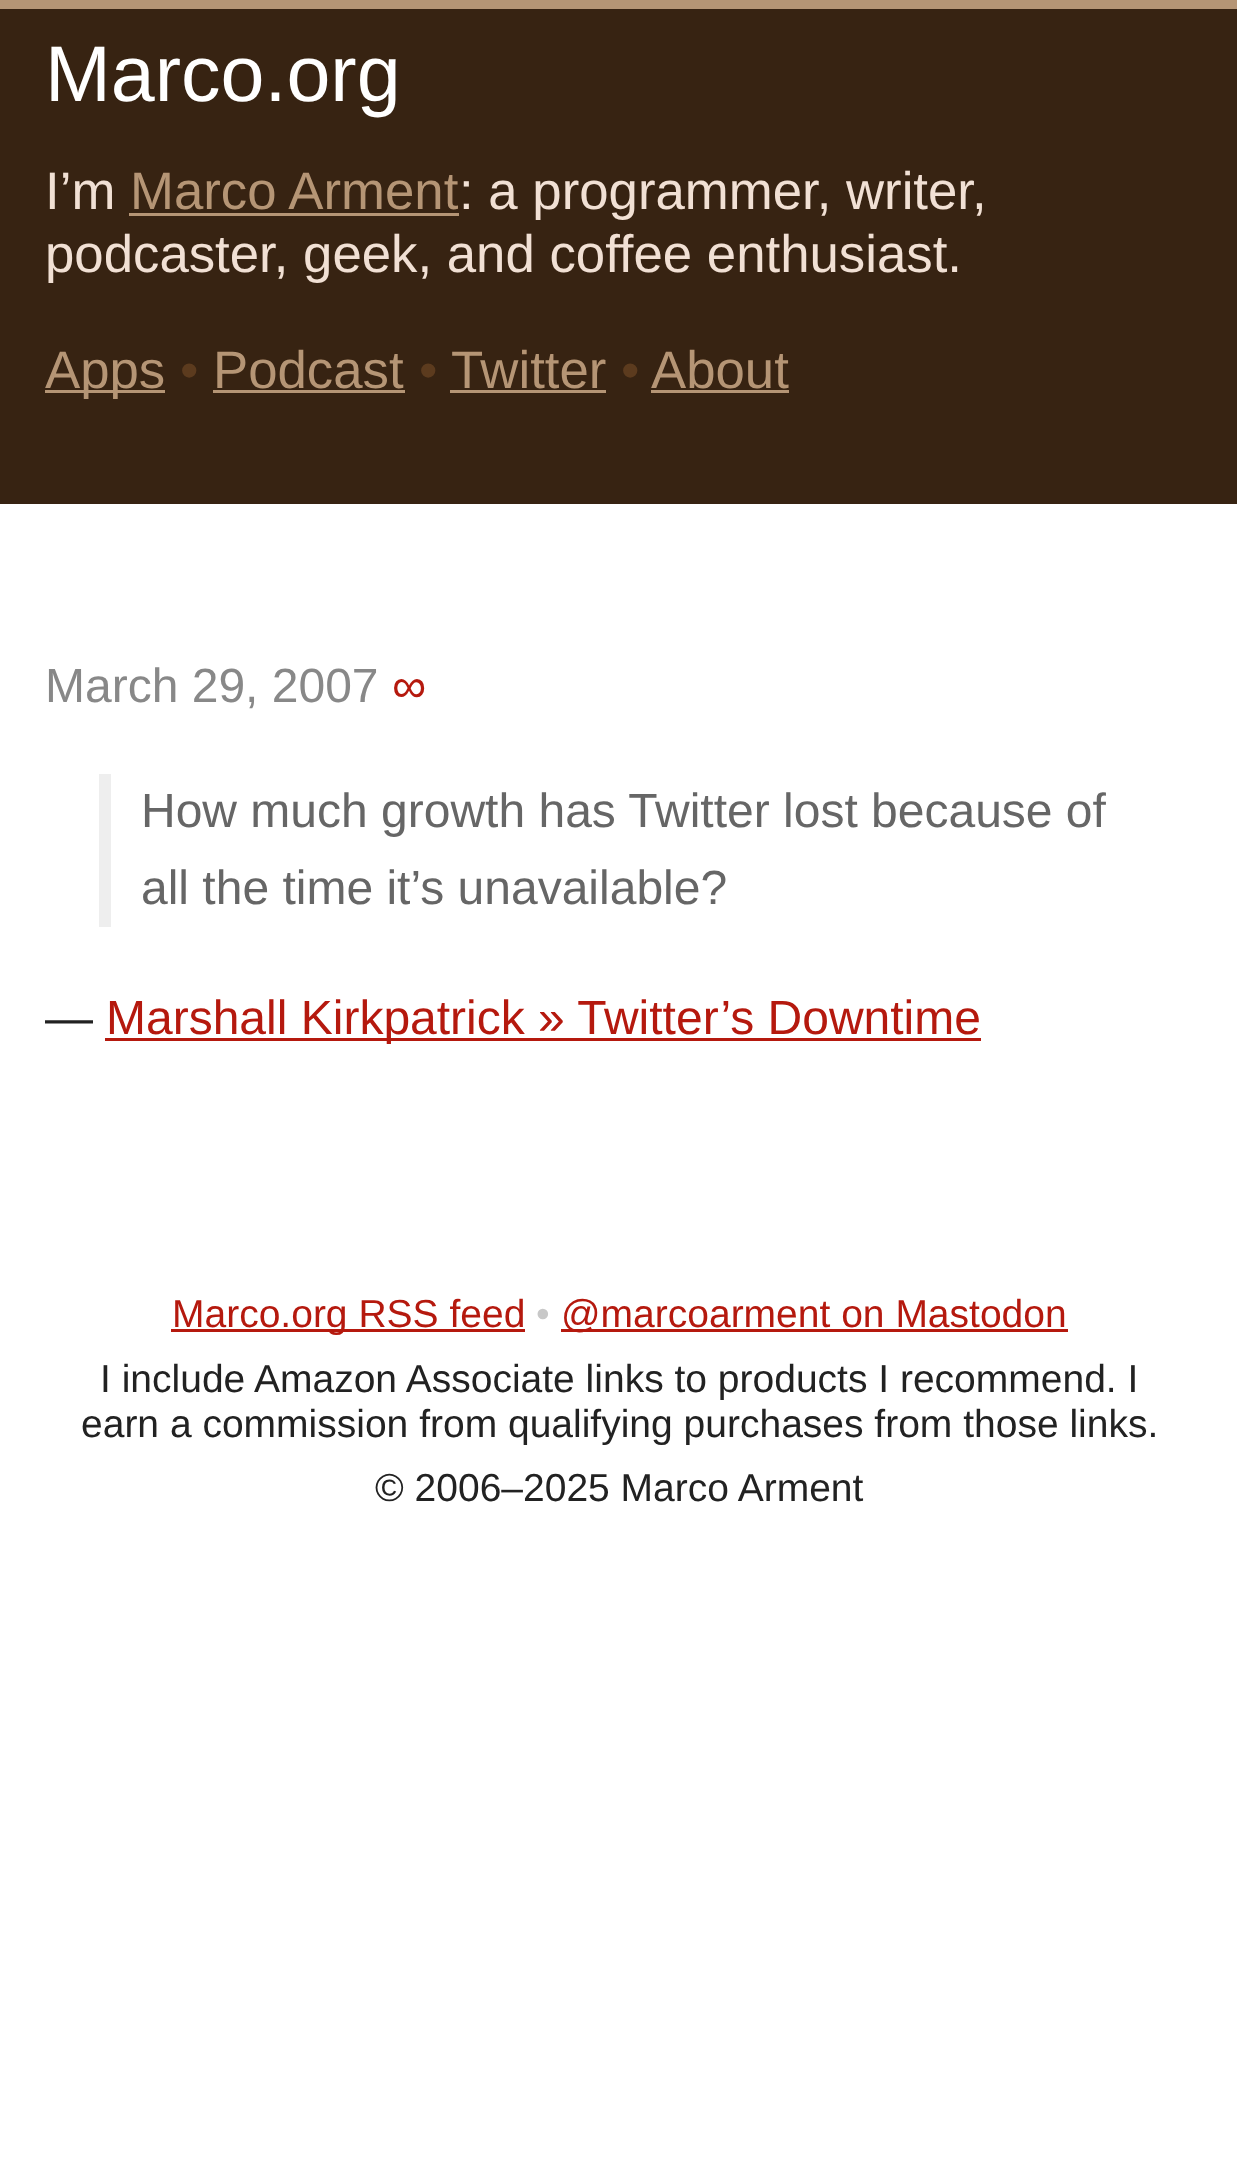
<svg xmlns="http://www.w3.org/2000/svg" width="1237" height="2179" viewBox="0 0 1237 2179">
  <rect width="100%" height="100%" fill="#ffffff"/>
  <rect x="0" y="0" width="1237" height="9" fill="#b59575"/>
  <rect x="0" y="9" width="1237" height="495" fill="#372312"/>
  <text x="45" y="101" font-family="Liberation Sans" font-size="79" fill="#ffffff">Marco.org</text>
  <text x="45" y="209" font-family="Liberation Sans" font-size="52.75" fill="#f1e0d4">I’m</text>
  <text x="130" y="209" font-family="Liberation Sans" font-size="52.75" fill="#b59575">Marco Arment</text>
  <rect x="129" y="213" width="330" height="3" fill="#b59575"/>
  <text x="459" y="209" font-family="Liberation Sans" font-size="52.75" fill="#f1e0d4">: a programmer, writer,</text>
  <text x="45" y="272" font-family="Liberation Sans" font-size="52.75" fill="#f1e0d4">podcaster, geek, and coffee enthusiast.</text>
  <rect x="45" y="390" width="120" height="3" fill="#b59575"/>
  <text x="45" y="388" font-family="Liberation Sans" font-size="52.75" fill="#b59575">Apps</text>
  <text x="180" y="388" font-family="Liberation Sans" font-size="52.75" fill="#5c3b1e">•</text>
  <text x="213" y="388" font-family="Liberation Sans" font-size="52.75" fill="#b59575">Podcast</text>
  <rect x="213" y="390" width="192" height="3" fill="#b59575"/>
  <text x="419" y="388" font-family="Liberation Sans" font-size="52.75" fill="#5c3b1e">•</text>
  <text x="451" y="388" font-family="Liberation Sans" font-size="52.75" fill="#b59575">Twitter</text>
  <rect x="450" y="390" width="156" height="3" fill="#b59575"/>
  <text x="621" y="388" font-family="Liberation Sans" font-size="52.75" fill="#5c3b1e">•</text>
  <text x="651" y="388" font-family="Liberation Sans" font-size="52.75" fill="#b59575">About</text>
  <rect x="651" y="390" width="138" height="3" fill="#b59575"/>
  <text x="45" y="702" font-family="Liberation Sans" font-size="48" fill="#888888">March 29, 2007</text>
  <text x="392" y="702" font-family="Liberation Sans" font-size="48" fill="#b5190e">∞</text>
  <rect x="99" y="774" width="12" height="153" fill="#eeeeee"/>
  <text x="141" y="827" font-family="Liberation Sans" font-size="48" fill="#666666">How much growth has Twitter lost because of</text>
  <text x="141" y="904" font-family="Liberation Sans" font-size="48" fill="#666666">all the time it’s unavailable?</text>
  <text x="45" y="1034" font-family="Liberation Sans" font-size="48" fill="#222222">—</text>
  <rect x="105" y="1038" width="876" height="3" fill="#b5190e"/>
  <text x="106" y="1034" font-family="Liberation Sans" font-size="48" fill="#b5190e">Marshall Kirkpatrick » Twitter’s Downtime</text>
  <rect x="171" y="1329" width="354" height="3" fill="#b5190e"/>
  <text x="172" y="1327" font-family="Liberation Sans" font-size="39" fill="#b5190e">Marco.org RSS feed</text>
  <text x="536" y="1327" font-family="Liberation Sans" font-size="39" fill="#c8c8c8">•</text>
  <rect x="561" y="1329" width="507" height="3" fill="#b5190e"/>
  <text x="561" y="1327" font-family="Liberation Sans" font-size="39" fill="#b5190e">@marcoarment on Mastodon</text>
  <text x="100" y="1392" font-family="Liberation Sans" font-size="39" fill="#222222">I include Amazon Associate links to products I recommend. I</text>
  <text x="81" y="1437" font-family="Liberation Sans" font-size="39" fill="#222222">earn a commission from qualifying purchases from those links.</text>
  <text x="375" y="1501" font-family="Liberation Sans" font-size="39" fill="#222222">© 2006–2025 Marco Arment</text>
</svg>
